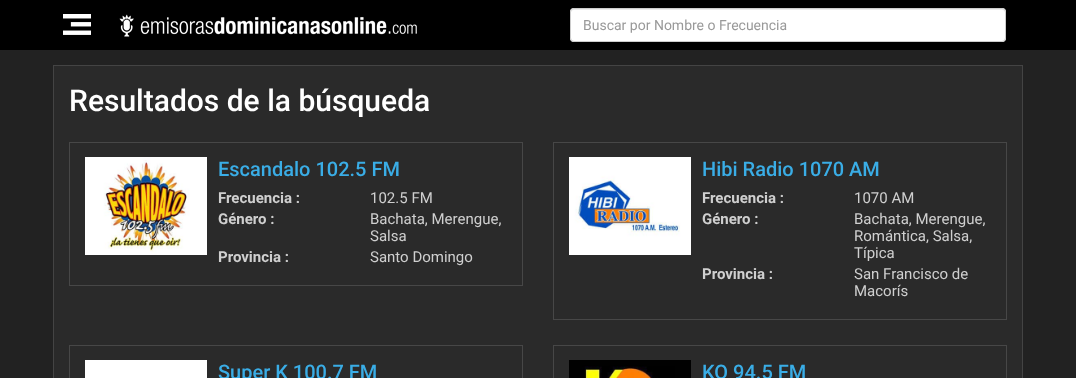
<svg xmlns="http://www.w3.org/2000/svg" width="1076" height="378" viewBox="0 0 1076 378">
  <rect width="100%" height="100%" fill="#222222"/>
  <rect x="0" y="0" width="1076" height="50" fill="#000000"/>
  <image x="63" y="14" width="28" height="21" href="img1.png"/>
  <image x="119" y="14" width="298" height="23" href="img2.png"/>
  <rect x="570" y="8" width="436" height="34" rx="4" fill="#ffffff"/>
  <path d="M574 10H1002C1004 10 1005 11 1005 13C1005 11 1004 9 1002 9H574C572 9 571 11 571 13C571 11 572 10 574 10Z" fill="#ececec"/>
  <rect x="570.5" y="8.5" width="435" height="33" rx="3.5" fill="none" stroke="#cccccc"/>
  <text x="583" y="30" font-family="Roboto" font-size="14" fill="#999999">Buscar por Nombre o Frecuencia</text>
  <rect x="53.5" y="65.5" width="969" height="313" fill="#2a2a2a" stroke="#444444"/>
  <text x="69" y="111" font-family="Roboto" font-size="30" font-weight="500" fill="#ffffff">Resultados de la búsqueda</text>
  <rect x="69.5" y="142.5" width="453" height="143" fill="none" stroke="#474747"/>
  <image x="85" y="157" width="122" height="98" href="img3.png"/>
  <text x="218" y="176" font-family="Roboto" font-size="20" font-weight="500" fill="#3aade6">Escandalo 102.5 FM</text>
  <text x="218" y="203" font-family="Roboto" font-size="15" font-weight="bold" fill="#cfcfcf">Frecuencia :</text>
  <text x="370" y="203" font-family="Roboto" font-size="15" fill="#cfcfcf">102.5 FM</text>
  <text x="218" y="224" font-family="Roboto" font-size="15" font-weight="bold" fill="#cfcfcf">Género :</text>
  <text x="370" y="224" font-family="Roboto" font-size="15" fill="#cfcfcf">Bachata, Merengue,</text>
  <text x="370" y="241" font-family="Roboto" font-size="15" fill="#cfcfcf">Salsa</text>
  <text x="218" y="262" font-family="Roboto" font-size="15" font-weight="bold" fill="#cfcfcf">Provincia :</text>
  <text x="370" y="262" font-family="Roboto" font-size="15" fill="#cfcfcf">Santo Domingo</text>
  <rect x="553.5" y="142.5" width="453" height="177" fill="none" stroke="#474747"/>
  <image x="569" y="157" width="122" height="98" href="img4.png"/>
  <text x="702" y="176" font-family="Roboto" font-size="20" font-weight="500" fill="#3aade6">Hibi Radio 1070 AM</text>
  <text x="702" y="203" font-family="Roboto" font-size="15" font-weight="bold" fill="#cfcfcf">Frecuencia :</text>
  <text x="854" y="203" font-family="Roboto" font-size="15" fill="#cfcfcf">1070 AM</text>
  <text x="702" y="224" font-family="Roboto" font-size="15" font-weight="bold" fill="#cfcfcf">Género :</text>
  <text x="854" y="224" font-family="Roboto" font-size="15" fill="#cfcfcf">Bachata, Merengue,</text>
  <text x="854" y="241" font-family="Roboto" font-size="15" fill="#cfcfcf">Romántica, Salsa,</text>
  <text x="854" y="258" font-family="Roboto" font-size="15" fill="#cfcfcf">Típica</text>
  <text x="702" y="279" font-family="Roboto" font-size="15" font-weight="bold" fill="#cfcfcf">Provincia :</text>
  <text x="854" y="279" font-family="Roboto" font-size="15" fill="#cfcfcf">San Francisco de</text>
  <text x="854" y="296" font-family="Roboto" font-size="15" fill="#cfcfcf">Macorís</text>
  <rect x="69.5" y="345.5" width="453" height="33" fill="none" stroke="#474747"/>
  <rect x="85" y="360" width="122" height="18" fill="#ffffff"/>
  <text x="218" y="379" font-family="Roboto" font-size="20" font-weight="500" fill="#3aade6">Super K 100.7 FM</text>
  <rect x="553.5" y="345.5" width="453" height="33" fill="none" stroke="#474747"/>
  <image x="569" y="360" width="122" height="18" href="img5.png"/>
  <text x="702" y="379" font-family="Roboto" font-size="20" font-weight="500" fill="#3aade6">KQ 94.5 FM</text>
</svg>
